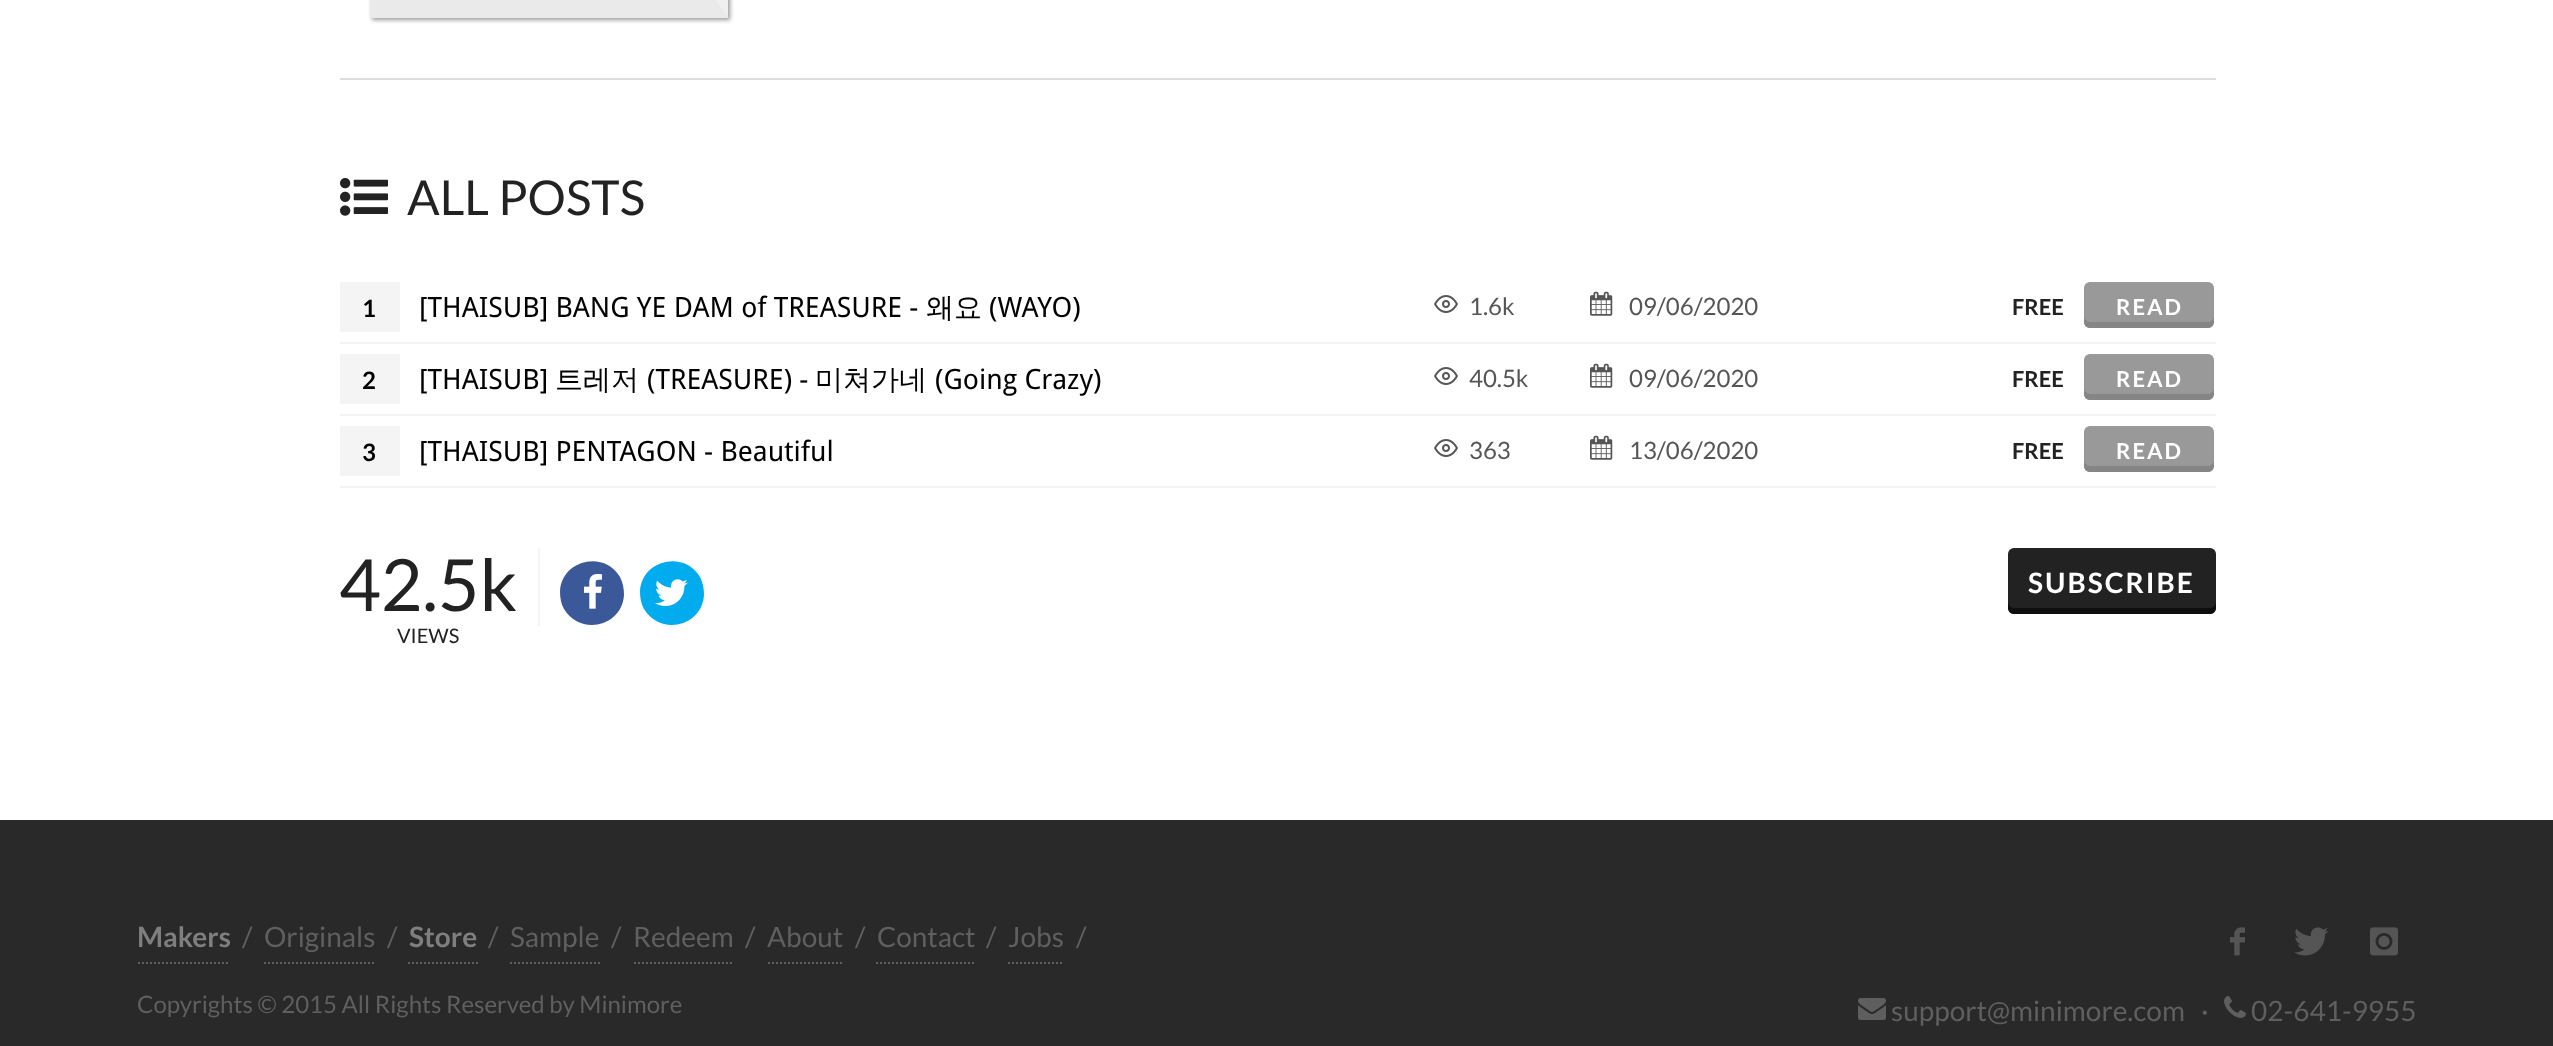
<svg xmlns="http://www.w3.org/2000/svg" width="2553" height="1046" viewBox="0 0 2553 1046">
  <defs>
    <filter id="blur1" x="-50%" y="-200%" width="200%" height="500%"><feGaussianBlur stdDeviation="2"/></filter>
  </defs>
  <rect width="100%" height="100%" fill="#ffffff"/>
  <rect x="340" y="78" width="1876" height="2" fill="#dddddd"/>
  <rect x="372" y="-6" width="358" height="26" fill="#999999" filter="url(#blur1)"/>
  <image x="370" y="0" width="358" height="18" href="img1.png"/>
  <image x="340" y="178" width="48" height="38" href="img2.png"/>
  <text x="407" y="215" font-family="Lato" font-size="48" fill="#222222">ALL POSTS</text>
  <rect x="340" y="342" width="1876" height="2" fill="#f4f4f4"/>
  <rect x="340" y="282" width="60" height="50" fill="#f4f4f4"/>
  <text x="362" y="317" font-family="Lato" font-size="24" font-weight="bold" fill="#000000">1</text>
  <text x="419" y="317" font-family="Droid Sans" font-size="28" fill="#000000">[THAISUB] BANG YE DAM of TREASURE -</text>
  <text x="926" y="317" font-family="WenQuanYi Zen Hei" font-size="28" font-weight="500" fill="#000000">왜요</text>
  <text x="989" y="317" font-family="Droid Sans" font-size="28" fill="#000000">(WAYO)</text>
  <image x="1434" y="295" width="24" height="18" href="img3.png"/>
  <text x="1469" y="315" font-family="Lato" font-size="24" fill="#555555">1.6k</text>
  <image x="1590" y="291" width="23" height="25" href="img4.png"/>
  <text x="1629" y="315" font-family="Lato" font-size="24" fill="#555555">09/06/2020</text>
  <text x="2012" y="315" font-family="Lato" font-size="22" font-weight="bold" fill="#222222">FREE</text>
  <rect x="2084" y="282" width="130" height="46" rx="6" fill="#999999"/>
  <path d="M2084 316V322C2084 325 2087 328 2090 328H2208C2211 328 2214 325 2214 322V316C2214 319 2211 322 2208 322H2090C2087 322 2084 319 2084 316Z" fill="#858585"/>
  <text x="2116" y="315" font-family="Lato" font-size="22" font-weight="bold" letter-spacing="2" fill="#ffffff">READ</text>
  <rect x="340" y="414" width="1876" height="2" fill="#f4f4f4"/>
  <rect x="340" y="354" width="60" height="50" fill="#f4f4f4"/>
  <text x="362" y="389" font-family="Lato" font-size="24" font-weight="bold" fill="#000000">2</text>
  <text x="419" y="389" font-family="Droid Sans" font-size="28" fill="#000000">[THAISUB]</text>
  <text x="555" y="389" font-family="WenQuanYi Zen Hei" font-size="28" font-weight="500" fill="#000000">트레저</text>
  <text x="647" y="389" font-family="Droid Sans" font-size="28" fill="#000000">(TREASURE) -</text>
  <text x="815" y="389" font-family="WenQuanYi Zen Hei" font-size="28" font-weight="500" fill="#000000">미쳐가네</text>
  <text x="935" y="389" font-family="Droid Sans" font-size="28" fill="#000000">(Going Crazy)</text>
  <image x="1434" y="367" width="24" height="18" href="img3.png"/>
  <text x="1469" y="387" font-family="Lato" font-size="24" fill="#555555">40.5k</text>
  <image x="1590" y="363" width="23" height="25" href="img4.png"/>
  <text x="1629" y="387" font-family="Lato" font-size="24" fill="#555555">09/06/2020</text>
  <text x="2012" y="387" font-family="Lato" font-size="22" font-weight="bold" fill="#222222">FREE</text>
  <rect x="2084" y="354" width="130" height="46" rx="6" fill="#999999"/>
  <path d="M2084 388V394C2084 397 2087 400 2090 400H2208C2211 400 2214 397 2214 394V388C2214 391 2211 394 2208 394H2090C2087 394 2084 391 2084 388Z" fill="#858585"/>
  <text x="2116" y="387" font-family="Lato" font-size="22" font-weight="bold" letter-spacing="2" fill="#ffffff">READ</text>
  <rect x="340" y="486" width="1876" height="2" fill="#f4f4f4"/>
  <rect x="340" y="426" width="60" height="50" fill="#f4f4f4"/>
  <text x="362" y="461" font-family="Lato" font-size="24" font-weight="bold" fill="#000000">3</text>
  <text x="419" y="461" font-family="Droid Sans" font-size="28" fill="#000000">[THAISUB] PENTAGON - Beautiful</text>
  <image x="1434" y="439" width="24" height="18" href="img3.png"/>
  <text x="1469" y="459" font-family="Lato" font-size="24" fill="#555555">363</text>
  <image x="1590" y="435" width="23" height="25" href="img4.png"/>
  <text x="1629" y="459" font-family="Lato" font-size="24" fill="#555555">13/06/2020</text>
  <text x="2012" y="459" font-family="Lato" font-size="22" font-weight="bold" fill="#222222">FREE</text>
  <rect x="2084" y="426" width="130" height="46" rx="6" fill="#999999"/>
  <path d="M2084 460V466C2084 469 2087 472 2090 472H2208C2211 472 2214 469 2214 466V460C2214 463 2211 466 2208 466H2090C2087 466 2084 463 2084 460Z" fill="#858585"/>
  <text x="2116" y="459" font-family="Lato" font-size="22" font-weight="bold" letter-spacing="2" fill="#ffffff">READ</text>
  <rect x="538" y="548" width="2" height="78" fill="#f4f4f4"/>
  <text x="339" y="611" font-family="Lato" font-size="72" fill="#222222">42.5k</text>
  <text x="397" y="643" font-family="Lato" font-size="20" fill="#222222">VIEWS</text>
  <path d="M620 577C623 583 624 589 624 595C622 627 580 636 564 609C561 604 560 598 560 591C562 560 604 550 620 577Z" fill="#3b5998"/>
  <image x="584" y="574" width="18" height="35" href="img5.png"/>
  <path d="M700 577C703 583 704 589 704 595C702 627 660 636 644 609C641 604 640 598 640 591C642 560 684 550 700 577Z" fill="#00acee"/>
  <image x="655" y="579" width="33" height="27" href="img6.png"/>
  <rect x="2008" y="548" width="208" height="66" rx="6" fill="#222222"/>
  <path d="M2008 602V608C2008 611 2011 614 2014 614H2210C2213 614 2216 611 2216 608V602C2216 605 2213 608 2210 608H2014C2011 608 2008 605 2008 602Z" fill="#0e0e0e"/>
  <text x="2028" y="593" font-family="Lato" font-size="28" font-weight="bold" letter-spacing="2" fill="#ffffff">SUBSCRIBE</text>
  <rect x="0" y="820" width="2553" height="226" fill="#292929"/>
  <path d="M138 963H230" fill="none" stroke="#5f5f5f" stroke-width="2" stroke-dasharray="2 2"/>
  <text x="137" y="947" font-family="Lato" font-size="28" font-weight="bold" fill="#7f7f7f">Makers</text>
  <text x="242" y="947" font-family="Lato" font-size="28" fill="#5f5f5f">/</text>
  <path d="M264 963H376" fill="none" stroke="#5f5f5f" stroke-width="2" stroke-dasharray="2 2"/>
  <text x="264" y="947" font-family="Lato" font-size="28" fill="#5f5f5f">Originals</text>
  <text x="387" y="947" font-family="Lato" font-size="28" fill="#5f5f5f">/</text>
  <path d="M408 963H478" fill="none" stroke="#5f5f5f" stroke-width="2" stroke-dasharray="2 2"/>
  <text x="409" y="947" font-family="Lato" font-size="28" font-weight="bold" fill="#7f7f7f">Store</text>
  <text x="488" y="947" font-family="Lato" font-size="28" fill="#5f5f5f">/</text>
  <path d="M510 963H600" fill="none" stroke="#5f5f5f" stroke-width="2" stroke-dasharray="2 2"/>
  <text x="510" y="947" font-family="Lato" font-size="28" fill="#5f5f5f">Sample</text>
  <text x="611" y="947" font-family="Lato" font-size="28" fill="#5f5f5f">/</text>
  <path d="M634 963H734" fill="none" stroke="#5f5f5f" stroke-width="2" stroke-dasharray="2 2"/>
  <text x="633" y="947" font-family="Lato" font-size="28" fill="#5f5f5f">Redeem</text>
  <text x="745" y="947" font-family="Lato" font-size="28" fill="#5f5f5f">/</text>
  <path d="M768 963H844" fill="none" stroke="#5f5f5f" stroke-width="2" stroke-dasharray="2 2"/>
  <text x="767" y="947" font-family="Lato" font-size="28" fill="#5f5f5f">About</text>
  <text x="855" y="947" font-family="Lato" font-size="28" fill="#5f5f5f">/</text>
  <path d="M876 963H976" fill="none" stroke="#5f5f5f" stroke-width="2" stroke-dasharray="2 2"/>
  <text x="877" y="947" font-family="Lato" font-size="28" fill="#5f5f5f">Contact</text>
  <text x="986" y="947" font-family="Lato" font-size="28" fill="#5f5f5f">/</text>
  <path d="M1008 963H1064" fill="none" stroke="#5f5f5f" stroke-width="2" stroke-dasharray="2 2"/>
  <text x="1008" y="947" font-family="Lato" font-size="28" fill="#5f5f5f">Jobs</text>
  <text x="1076" y="947" font-family="Lato" font-size="28" fill="#5f5f5f">/</text>
  <text x="137" y="1013" font-family="Lato" font-size="24" fill="#5f5f5f">Copyrights © 2015 All Rights Reserved by Minimore</text>
  <image x="2230" y="927" width="15" height="29" href="img7.png"/>
  <image x="2294" y="927" width="34" height="29" href="img8.png"/>
  <image x="2370" y="927" width="28" height="29" href="img9.png"/>
  <image x="1858" y="998" width="28" height="22" href="img10.png"/>
  <text x="1891" y="1021" font-family="Lato" font-size="28" fill="#5f5f5f">support@minimore.com</text>
  <text x="2201" y="1021" font-family="Lato" font-size="28" fill="#5f5f5f">·</text>
  <image x="2224" y="996" width="22" height="22" href="img11.png"/>
  <text x="2251" y="1021" font-family="Lato" font-size="28" fill="#5f5f5f">02-641-9955</text>
</svg>
